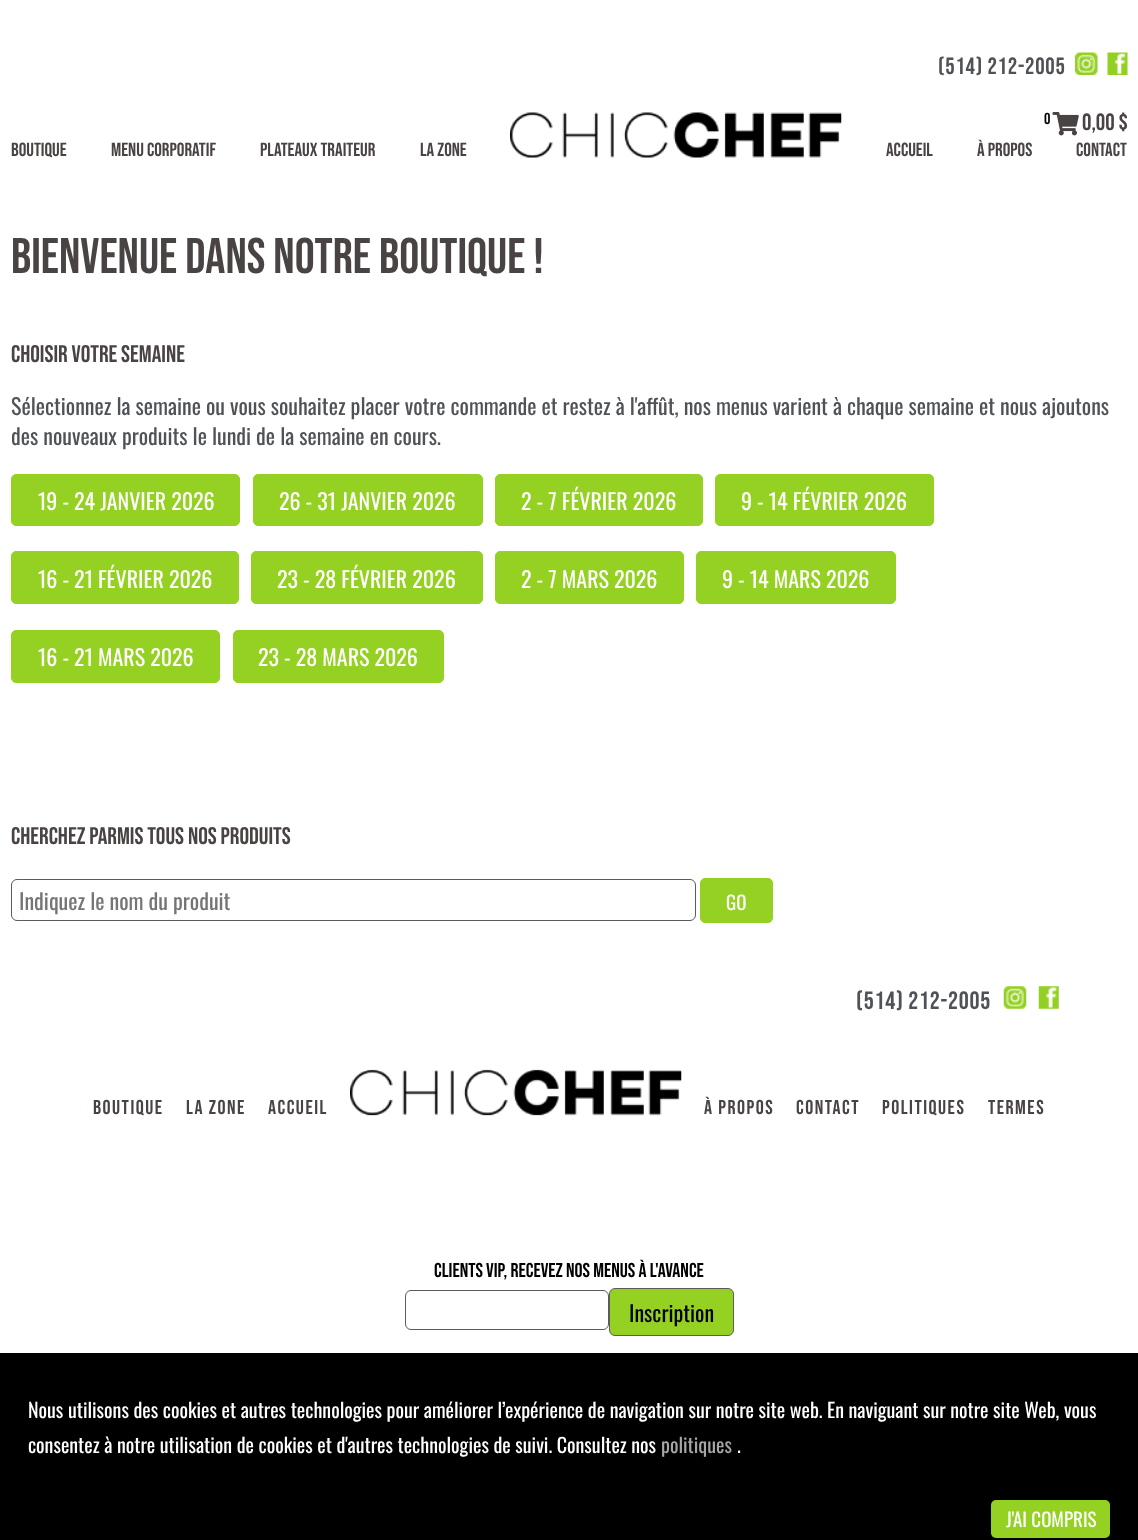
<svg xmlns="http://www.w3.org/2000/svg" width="1138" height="1540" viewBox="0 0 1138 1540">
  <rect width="100%" height="100%" fill="#ffffff"/>
  <text x="938" y="74" font-family="Bebas Neue" font-size="23.5" letter-spacing="0.75" fill="#4f5256">(514) 212-2005</text>
  <image x="1075" y="52" width="23" height="23" href="img1.png"/>
  <image x="1107" y="52" width="21" height="23" href="img2.png"/>
  <text x="1044" y="124" font-family="Bebas Neue" font-size="16" fill="#000000">0</text>
  <image x="1052" y="112" width="27" height="24" href="img3.png"/>
  <text x="1082" y="130" font-family="Bebas Neue" font-size="23.5" fill="#494343">0,00 $</text>
  <text x="11" y="156" font-family="Bebas Neue" font-size="19" fill="#494343">Boutique</text>
  <text x="111" y="156" font-family="Bebas Neue" font-size="19" fill="#494343">Menu corporatif</text>
  <text x="260" y="156" font-family="Bebas Neue" font-size="19" fill="#494343">Plateaux traiteur</text>
  <text x="420" y="156" font-family="Bebas Neue" font-size="19" fill="#494343">La Zone</text>
  <image x="510" y="112" width="332" height="46" href="img4.png"/>
  <text x="886" y="156" font-family="Bebas Neue" font-size="19" fill="#494343">Accueil</text>
  <text x="977" y="156" font-family="Bebas Neue" font-size="19" fill="#494343">À propos</text>
  <text x="1076" y="156" font-family="Bebas Neue" font-size="19" fill="#494343">Contact</text>
  <text x="11" y="273" font-family="Bebas Neue" font-size="50" fill="#494343">BIENVENUE DANS NOTRE BOUTIQUE !</text>
  <text x="11" y="362" font-family="Bebas Neue" font-size="24" fill="#494343">Choisir votre semaine</text>
  <text x="11" y="415" font-family="Oswald" font-size="22" fill="#4f5256">Sélectionnez la semaine ou vous souhaitez placer votre commande et restez à l'affût, nos menus varient à chaque semaine et nous ajoutons</text>
  <text x="11" y="445" font-family="Oswald" font-size="22" fill="#4f5256">des nouveaux produits le lundi de la semaine en cours.</text>
  <rect x="11.5" y="474.5" width="228" height="51" rx="4.5" fill="#95d123" stroke="#95d123"/>
  <text x="38" y="510" font-family="Oswald" font-size="22" fill="#ffffff">19 - 24 JANVIER 2026</text>
  <rect x="253.5" y="474.5" width="229" height="51" rx="4.5" fill="#95d123" stroke="#95d123"/>
  <text x="279" y="510" font-family="Oswald" font-size="22" fill="#ffffff">26 - 31 JANVIER 2026</text>
  <rect x="495.5" y="474.5" width="207" height="51" rx="4.5" fill="#95d123" stroke="#95d123"/>
  <text x="521" y="510" font-family="Oswald" font-size="22" fill="#ffffff">2 - 7 FÉVRIER 2026</text>
  <rect x="715.5" y="474.5" width="218" height="51" rx="4.5" fill="#95d123" stroke="#95d123"/>
  <text x="741" y="510" font-family="Oswald" font-size="22" fill="#ffffff">9 - 14 FÉVRIER 2026</text>
  <rect x="11.5" y="551.5" width="227" height="52" rx="4.5" fill="#95d123" stroke="#95d123"/>
  <text x="38" y="588" font-family="Oswald" font-size="22" fill="#ffffff">16 - 21 FÉVRIER 2026</text>
  <rect x="251.5" y="551.5" width="231" height="52" rx="4.5" fill="#95d123" stroke="#95d123"/>
  <text x="277" y="588" font-family="Oswald" font-size="22" fill="#ffffff">23 - 28 FÉVRIER 2026</text>
  <rect x="495.5" y="551.5" width="188" height="52" rx="4.5" fill="#95d123" stroke="#95d123"/>
  <text x="521" y="588" font-family="Oswald" font-size="22" fill="#ffffff">2 - 7 MARS 2026</text>
  <rect x="696.5" y="551.5" width="199" height="52" rx="4.5" fill="#95d123" stroke="#95d123"/>
  <text x="722" y="588" font-family="Oswald" font-size="22" fill="#ffffff">9 - 14 MARS 2026</text>
  <rect x="11.5" y="630.5" width="208" height="52" rx="4.5" fill="#95d123" stroke="#95d123"/>
  <text x="38" y="666" font-family="Oswald" font-size="22" fill="#ffffff">16 - 21 MARS 2026</text>
  <rect x="233.5" y="630.5" width="210" height="52" rx="4.5" fill="#95d123" stroke="#95d123"/>
  <text x="258" y="666" font-family="Oswald" font-size="22" fill="#ffffff">23 - 28 MARS 2026</text>
  <text x="11" y="844" font-family="Bebas Neue" font-size="24" fill="#494343">Cherchez parmis tous nos produits</text>
  <rect x="11.5" y="879.5" width="684" height="41" rx="5.5" fill="none" stroke="#5c5b5b"/>
  <text x="19" y="910" font-family="Oswald" font-size="22" fill="#757575">Indiquez le nom du produit</text>
  <rect x="700.5" y="878.5" width="72" height="44" rx="4.5" fill="#95d123" stroke="#95d123"/>
  <text x="726" y="910" font-family="Oswald" font-size="19" fill="#ffffff">GO</text>
  <text x="856" y="1009" font-family="Bebas Neue" font-size="25" letter-spacing="0.75" fill="#4f5256">(514) 212-2005</text>
  <image x="1003" y="986" width="24" height="23" href="img5.png"/>
  <image x="1038" y="986" width="21" height="23" href="img6.png"/>
  <text x="93" y="1114" font-family="Bebas Neue" font-size="20" letter-spacing="1.5" fill="#494343">Boutique</text>
  <text x="186" y="1114" font-family="Bebas Neue" font-size="20" letter-spacing="1.5" fill="#494343">La Zone</text>
  <text x="268" y="1114" font-family="Bebas Neue" font-size="20" letter-spacing="1.5" fill="#494343">Accueil</text>
  <image x="350" y="1069" width="332" height="47" href="img7.png"/>
  <text x="704" y="1114" font-family="Bebas Neue" font-size="20" letter-spacing="1.5" fill="#494343">À propos</text>
  <text x="796" y="1114" font-family="Bebas Neue" font-size="20" letter-spacing="1.5" fill="#494343">Contact</text>
  <text x="882" y="1114" font-family="Bebas Neue" font-size="20" letter-spacing="1.5" fill="#494343">Politiques</text>
  <text x="988" y="1114" font-family="Bebas Neue" font-size="20" letter-spacing="1.5" fill="#494343">Termes</text>
  <text x="434" y="1277" font-family="Bebas Neue" font-size="20" fill="#000000">Clients VIP, recevez nos menus à l'avance</text>
  <rect x="405.5" y="1290.5" width="203" height="39" rx="5.5" fill="none" stroke="#5c5b5b"/>
  <rect x="609.5" y="1288.5" width="124" height="47" rx="5.5" fill="#95d123" stroke="#5c5b5b"/>
  <text x="629" y="1322" font-family="Oswald" font-size="22" fill="#000000">Inscription</text>
  <rect x="0" y="1353" width="1138" height="187" fill="#000000"/>
  <text x="28" y="1418" font-family="Oswald" font-size="20" fill="#ffffff">Nous utilisons des cookies et autres technologies pour améliorer l’expérience de navigation sur notre site web. En naviguant sur notre site Web, vous</text>
  <text x="28" y="1453" font-family="Oswald" font-size="20" fill="#ffffff">consentez à notre utilisation de cookies et d'autres technologies de suivi. Consultez nos</text>
  <text x="661" y="1453" font-family="Oswald" font-size="20" fill="#a5a6a8">politiques</text>
  <text x="737" y="1453" font-family="Oswald" font-size="20" fill="#ffffff">.</text>
  <rect x="991" y="1500" width="119" height="38" rx="5" fill="#95d123"/>
  <text x="1006" y="1527" font-family="Oswald" font-size="19" fill="#ffffff">J'AI COMPRIS</text>
</svg>
